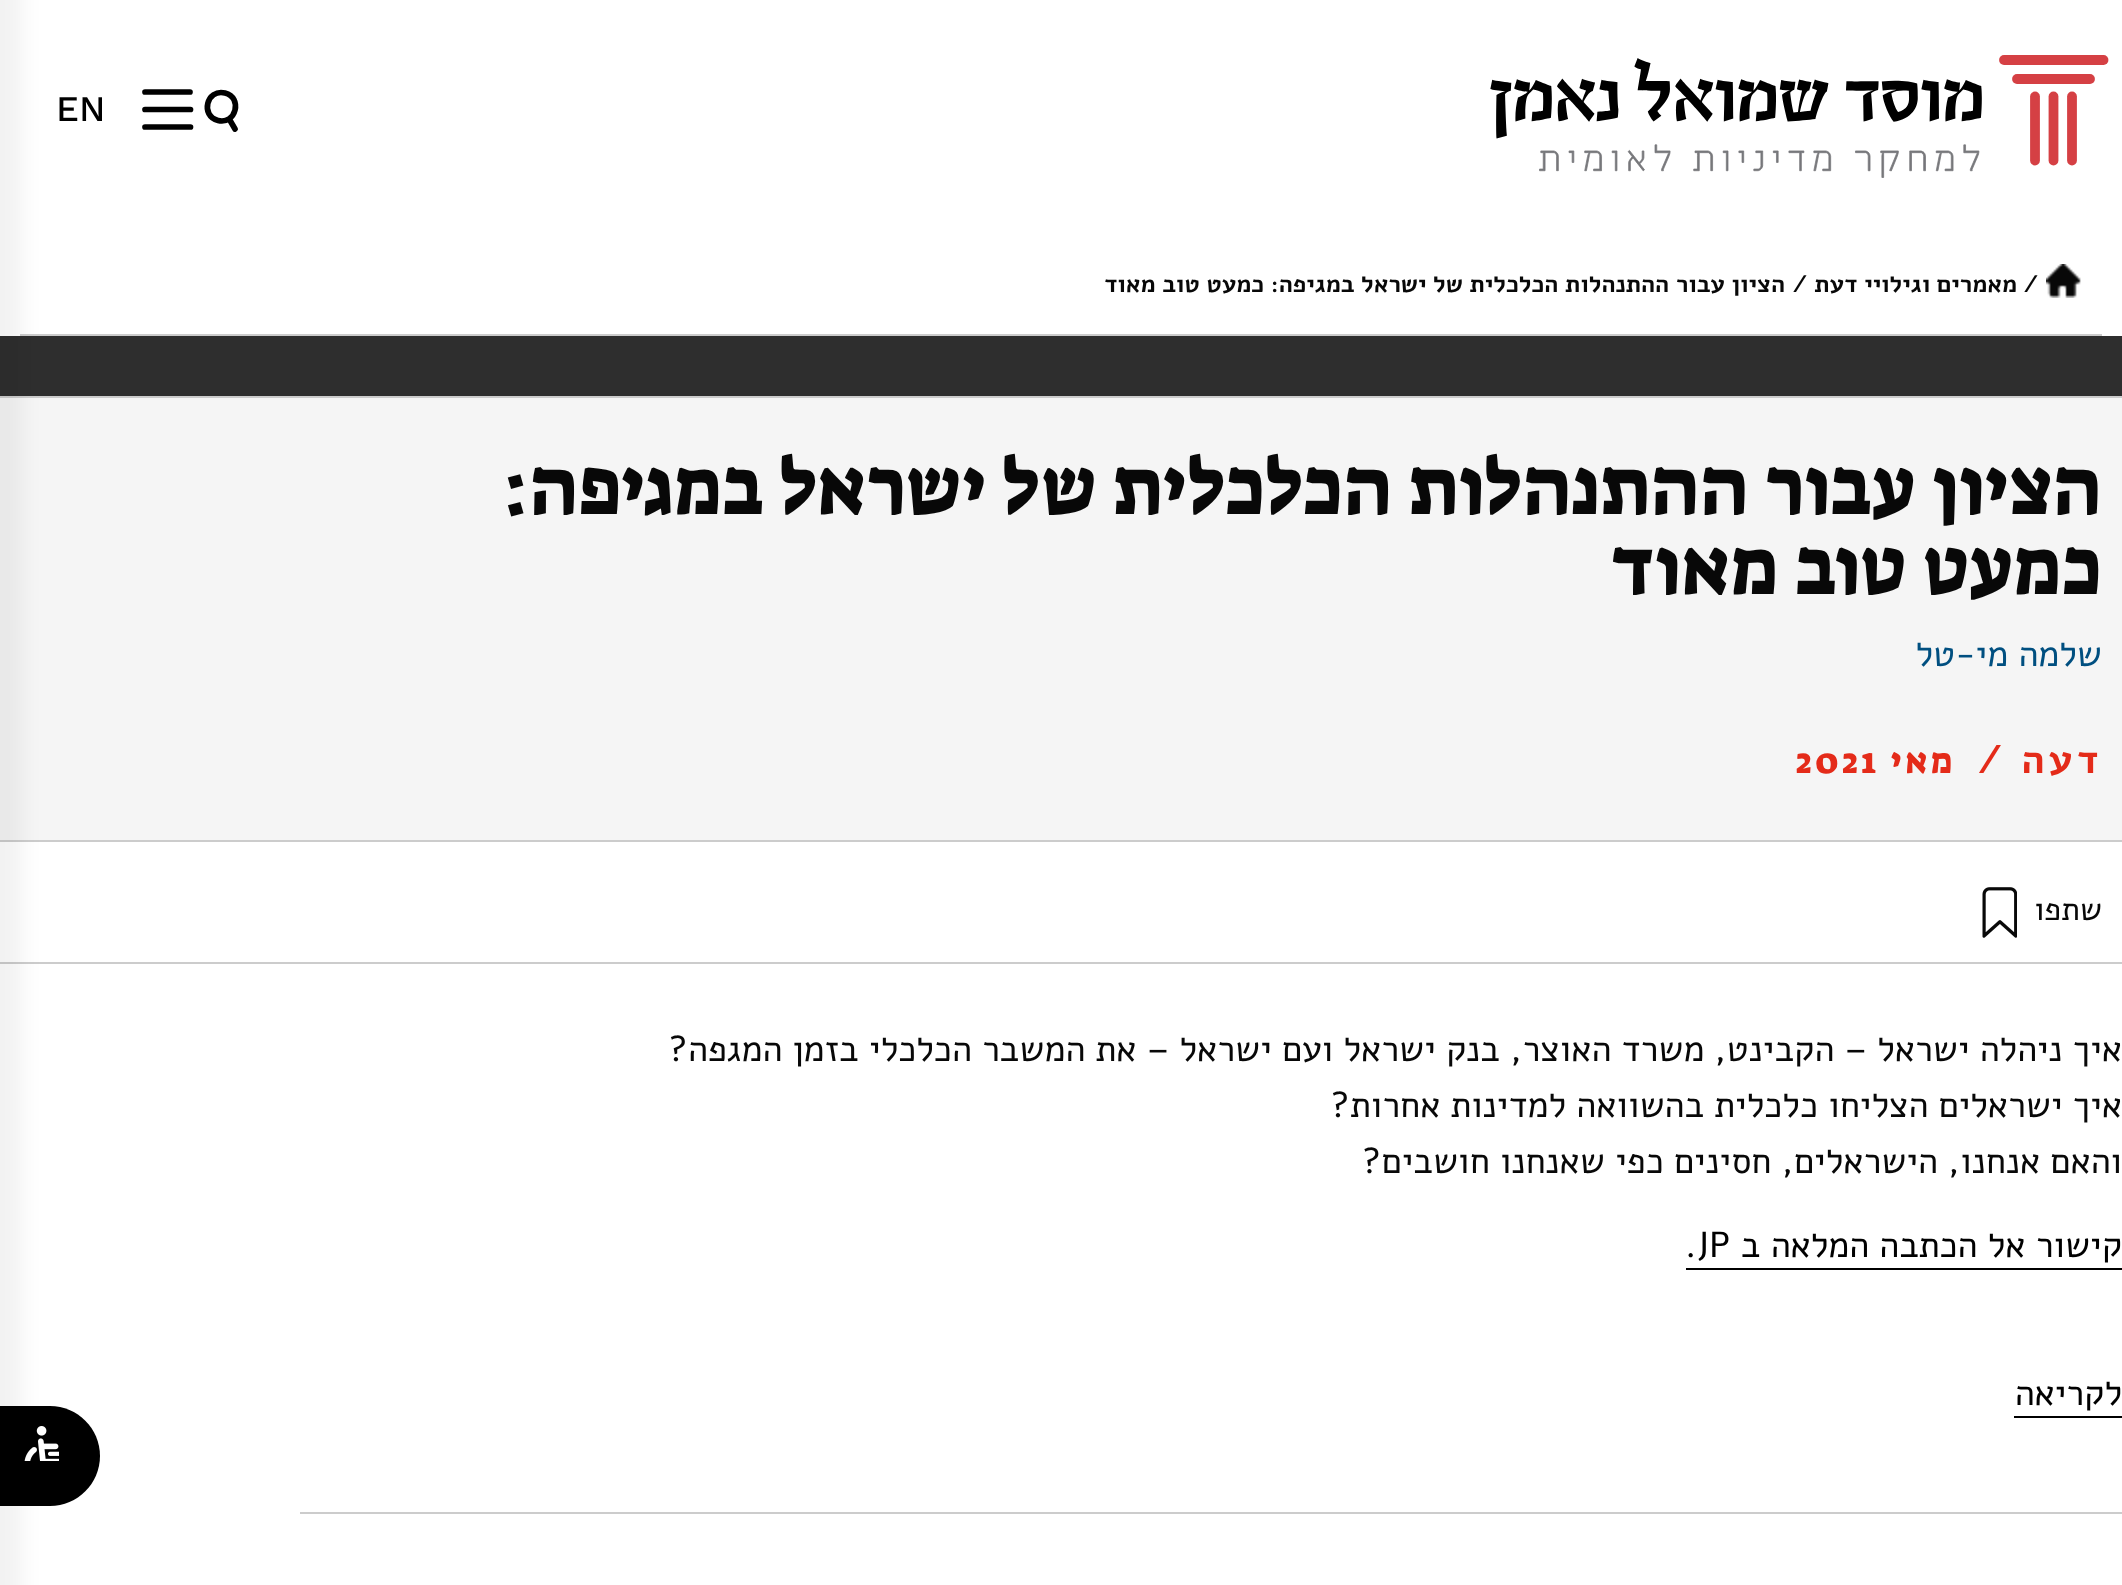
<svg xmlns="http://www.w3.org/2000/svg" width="2122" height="1585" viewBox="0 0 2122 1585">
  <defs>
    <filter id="blur1" x="-50%" y="-200%" width="200%" height="500%"><feGaussianBlur stdDeviation="10"/></filter>
  </defs>
  <rect width="100%" height="100%" fill="#ffffff"/>
  <path d="M2004 60H2103.5" fill="none" stroke="#d54044" stroke-width="9.8" stroke-linecap="round"/>
  <path d="M2017 79H2090" fill="none" stroke="#d54044" stroke-width="9.8" stroke-linecap="round"/>
  <path d="M2072 160.5V96.5" fill="none" stroke="#d54044" stroke-width="9.8" stroke-linecap="round"/>
  <path d="M2053.5 160.5V96.5" fill="none" stroke="#d54044" stroke-width="9.8" stroke-linecap="round"/>
  <path d="M2035 160.5V96.5" fill="none" stroke="#d54044" stroke-width="9.8" stroke-linecap="round"/>
  <image x="1490" y="58" width="492" height="120" href="img1.png"/>
  <path d="M225 93C243 97.5 236 125 218 120.5C200 116 206.5 88.5 225 93Z" fill="none" stroke="#000000" stroke-width="5.7"/>
  <path d="M235 129L229.5 119.5" fill="none" stroke="#000000" stroke-width="5.7" stroke-linecap="round"/>
  <path d="M190 92H145M190.5 109.5H145M190.5 127H145" fill="none" stroke="#000000" stroke-width="5.7" stroke-linecap="round"/>
  <text x="56" y="121" font-family="Work Sans" font-size="36" font-weight="500" fill="#000000">EN</text>
  <rect x="20" y="334" width="2082" height="2" fill="#cccccc"/>
  <image x="2046" y="264" width="35" height="34" href="img2.png"/>
  <text x="2023" y="292" font-family="Alef" font-size="24" font-weight="bold" fill="#080808">/</text>
  <text x="2017" y="292" font-family="Alef" font-size="24" font-weight="bold" direction="rtl" fill="#080808">מאמרים וגילויי דעת</text>
  <text x="1792" y="292" font-family="Alef" font-size="24" font-weight="bold" fill="#080808">/</text>
  <text x="1785" y="292" font-family="Alef" font-size="24" font-weight="bold" direction="rtl" fill="#080808">הציון עבור ההתנהלות הכלכלית של ישראל במגיפה: כמעט טוב מאוד</text>
  <rect x="0" y="336" width="2122" height="60" fill="#2e2e2e"/>
  <rect x="0" y="396" width="2122" height="2" fill="#cccccc"/>
  <rect x="0" y="398" width="2122" height="442" fill="#f5f5f5"/>
  <rect x="0" y="840" width="2122" height="2" fill="#cccccc"/>
  <rect x="0" y="962" width="2122" height="2" fill="#cccccc"/>
  <path d="M0 1406H50C77.5 1406 100 1428.5 100 1456C100 1483.5 77.5 1506 50 1506H0Z" fill="#000000"/>
  <image x="24" y="1426" width="35" height="35" href="img4.png"/>
  <rect x="-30" y="-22" width="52" height="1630" fill="#000000" fill-opacity="0.05" filter="url(#blur1)"/>
  <text x="2102" y="514" font-family="Suez One" font-size="80" direction="rtl" fill="#080808">הציון עבור ההתנהלות הכלכלית של ישראל במגיפה:</text>
  <text x="2102" y="594" font-family="Suez One" font-size="80" direction="rtl" fill="#080808">כמעט טוב מאוד</text>
  <text x="2102" y="666" font-family="Alef" font-size="36" direction="rtl" fill="#004f80">שלמה מי-טל</text>
  <text x="2102" y="773" font-family="Alef" font-size="40" font-weight="bold" letter-spacing="3.5" direction="rtl" fill="#e42b19">דעה /</text>
  <text x="1956" y="773" font-family="Suez One" font-size="36" letter-spacing="3.5" direction="rtl" fill="#e42b19">מאי</text>
  <text x="1796" y="773" font-family="Suez One" font-size="36" letter-spacing="3.5" fill="#e42b19">2021</text>
  <text x="2102" y="920" font-family="Alef" font-size="32" direction="rtl" fill="#080808">שתפו</text>
  <image x="1982" y="887" width="35" height="51" href="img3.png"/>
  <text x="2122" y="1061" font-family="Alef" font-size="36" direction="rtl" fill="#080808">איך ניהלה ישראל – הקבינט, משרד האוצר, בנק ישראל ועם ישראל – את המשבר הכלכלי בזמן המגפה?</text>
  <text x="2122" y="1117" font-family="Alef" font-size="36" direction="rtl" fill="#080808">איך ישראלים הצליחו כלכלית בהשוואה למדינות אחרות?</text>
  <text x="2122" y="1173" font-family="Alef" font-size="36" direction="rtl" fill="#080808">והאם אנחנו, הישראלים, חסינים כפי שאנחנו חושבים?</text>
  <text x="2122" y="1257" font-family="Alef" font-size="36" direction="rtl" fill="#000000">קישור אל הכתבה המלאה ב</text>
  <rect x="1686" y="1268" width="436" height="2" fill="#000000"/>
  <text x="1685" y="1257" font-family="Alef" font-size="36" fill="#000000">.JP</text>
  <text x="2122" y="1405" font-family="Alef" font-size="36" direction="rtl" fill="#000000">לקריאה</text>
  <rect x="2014" y="1416" width="108" height="2" fill="#000000"/>
  <rect x="300" y="1512" width="1822" height="2" fill="#cccccc"/>
</svg>
